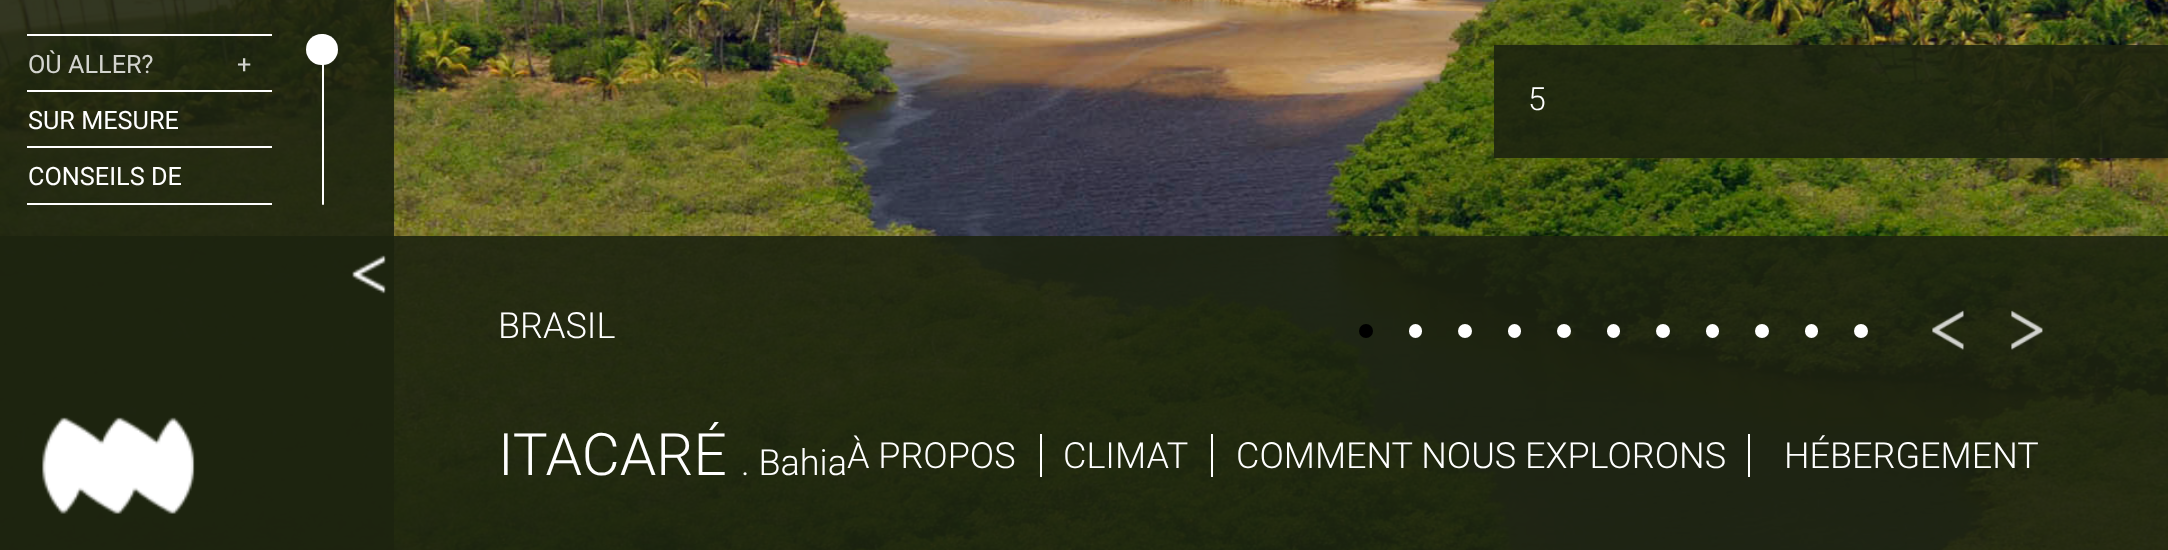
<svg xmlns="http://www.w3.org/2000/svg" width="2168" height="550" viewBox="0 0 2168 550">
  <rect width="100%" height="100%" fill="#ffffff"/>
  <image x="0" y="0" width="2168" height="550" href="img3.png"/>
  <rect x="0" y="236" width="2168" height="314" fill="#1d240f" fill-opacity="0.9"/>
  <rect x="0" y="0" width="347" height="550" fill="#1d240f" fill-opacity="0.9"/>
  <rect x="27" y="34" width="245" height="2" fill="#ffffff"/>
  <text x="28" y="73" font-family="Roboto" font-size="25.25" fill="#d3d4cf">OÙ ALLER?</text>
  <text x="237" y="73" font-family="Roboto" font-size="25.25" fill="#d3d4cf">+</text>
  <rect x="27" y="90" width="245" height="2" fill="#ffffff"/>
  <text x="28" y="129" font-family="Roboto" font-size="25.25" fill="#ffffff">SUR MESURE</text>
  <rect x="27" y="146" width="245" height="2" fill="#ffffff"/>
  <text x="28" y="185" font-family="Roboto" font-size="25.25" fill="#ffffff">CONSEILS DE</text>
  <rect x="27" y="203" width="245" height="2" fill="#ffffff"/>
  <rect x="322" y="34" width="2" height="171" rx="1" fill="#ffffff"/>
  <rect x="306" y="34" width="32" height="31" rx="15.5" fill="#ffffff"/>
  <rect x="347" y="0" width="47" height="550" fill="#1d240f" fill-opacity="0.9"/>
  <image x="352" y="255" width="34" height="39" href="img1.png"/>
  <image x="42" y="417" width="153" height="97" href="img2.png"/>
  <rect x="1494" y="45" width="674" height="113" fill="#1d240f" fill-opacity="0.9"/>
  <text x="1528" y="110" font-family="Roboto" font-size="32" font-weight="300" fill="#ffffff">5</text>
  <circle cx="1366" cy="331" r="7" fill="#000000"/>
  <rect x="1409" y="324" width="13" height="14" rx="6.5" fill="#ffffff"/>
  <circle cx="1465" cy="331" r="7" fill="#ffffff"/>
  <rect x="1508" y="324" width="13" height="14" rx="6.5" fill="#ffffff"/>
  <circle cx="1564" cy="331" r="7" fill="#ffffff"/>
  <rect x="1607" y="324" width="13" height="14" rx="6.5" fill="#ffffff"/>
  <circle cx="1663" cy="331" r="7" fill="#ffffff"/>
  <rect x="1706" y="324" width="13" height="14" rx="6.5" fill="#ffffff"/>
  <circle cx="1762" cy="331" r="7" fill="#ffffff"/>
  <rect x="1805" y="324" width="13" height="14" rx="6.5" fill="#ffffff"/>
  <circle cx="1861" cy="331" r="7" fill="#ffffff"/>
  <image x="1932" y="310" width="32" height="40" href="img4.png"/>
  <image x="2011" y="310" width="32" height="40" href="img5.png"/>
  <text x="498" y="338" font-family="Roboto" font-size="36" font-weight="300" fill="#ffffff">BRASIL</text>
  <text x="498" y="475" font-family="Roboto" font-size="58.5" font-weight="300" fill="#ffffff">ITACARÉ</text>
  <text x="741" y="475" font-family="Roboto" font-size="36" font-weight="300" fill="#ffffff">. Bahia</text>
  <text x="847" y="468" font-family="Roboto" font-size="36" font-weight="300" fill="#ffffff">À PROPOS</text>
  <rect x="1040" y="434" width="2" height="43" fill="#ffffff"/>
  <text x="1063" y="468" font-family="Roboto" font-size="36" font-weight="300" fill="#ffffff">CLIMAT</text>
  <rect x="1211" y="434" width="2" height="43" fill="#ffffff"/>
  <text x="1236" y="468" font-family="Roboto" font-size="36" font-weight="300" fill="#ffffff">COMMENT NOUS EXPLORONS</text>
  <rect x="1748" y="434" width="2" height="43" fill="#ffffff"/>
  <text x="1784" y="468" font-family="Roboto" font-size="36" font-weight="300" fill="#ffffff">HÉBERGEMENT</text>
</svg>
